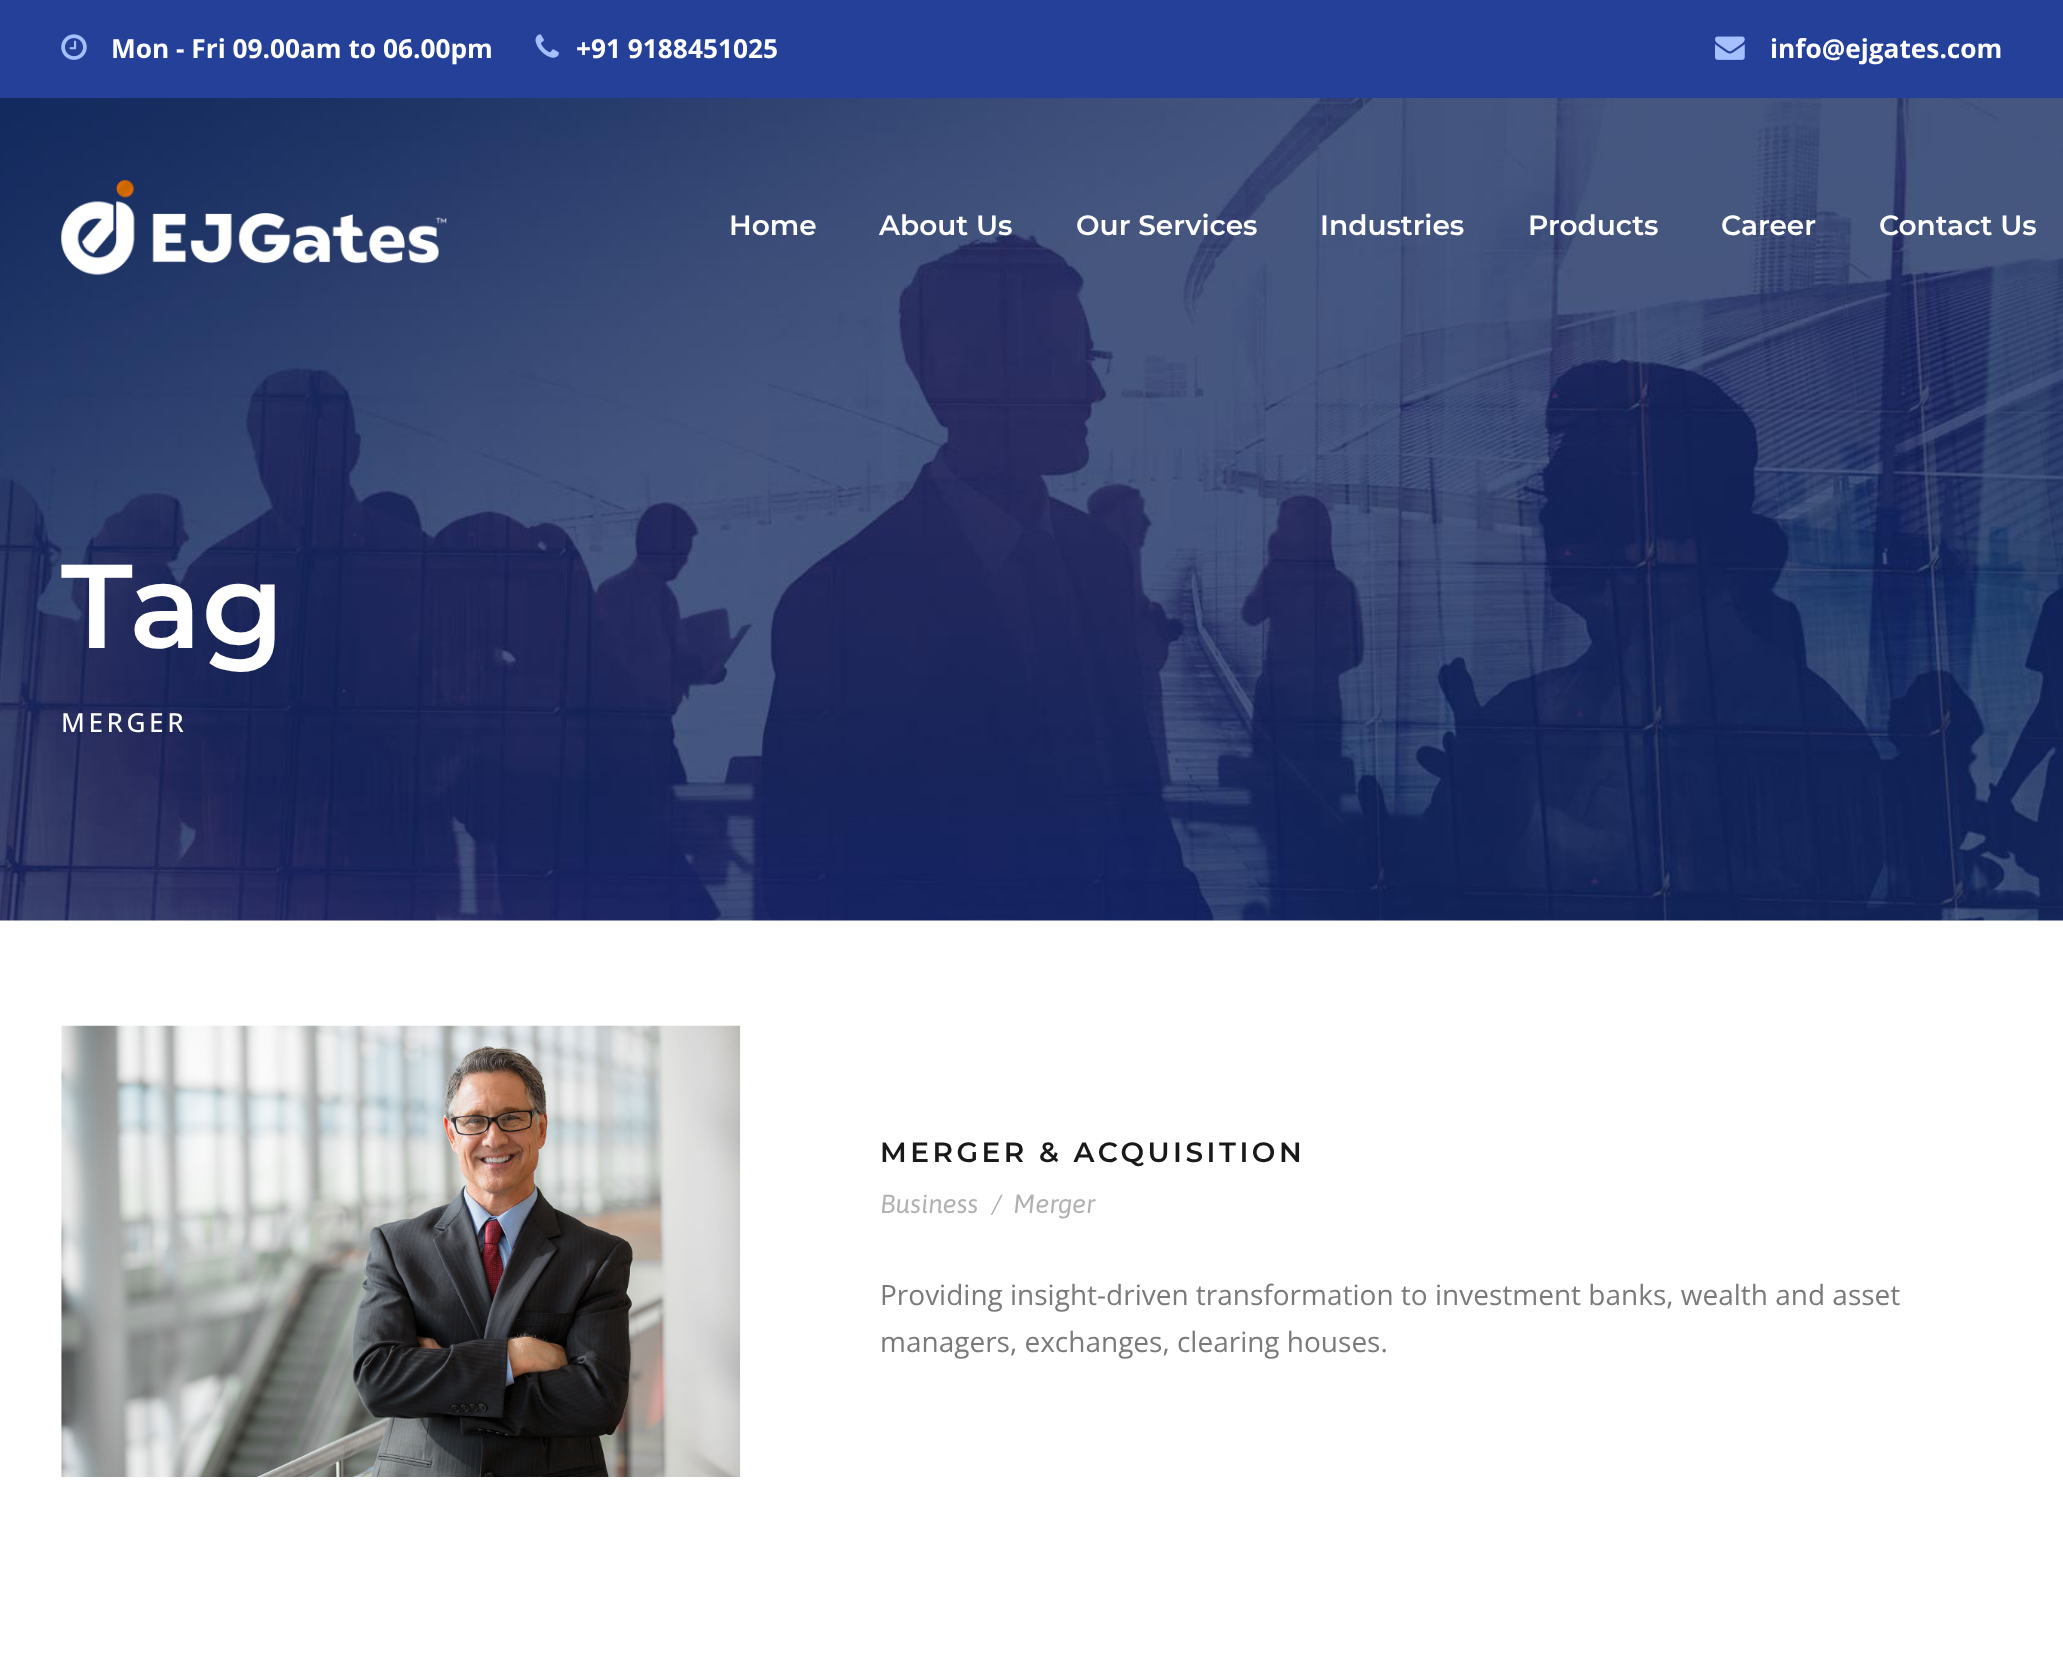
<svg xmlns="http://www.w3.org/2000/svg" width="2063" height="1673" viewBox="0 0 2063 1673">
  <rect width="100%" height="100%" fill="#ffffff"/>
  <rect x="0" y="0" width="2063" height="98" fill="#254099"/>
  <image x="61" y="34" width="26" height="26" href="img1.png"/>
  <text x="111" y="58" font-family="Open Sans" font-size="26.25" font-weight="bold" fill="#ffffff">Mon - Fri 09.00am to 06.00pm</text>
  <image x="535" y="34" width="24" height="24" href="img2.png"/>
  <text x="576" y="58" font-family="Open Sans" font-size="26.25" font-weight="bold" fill="#ffffff">+91 9188451025</text>
  <image x="1715" y="36" width="30" height="24" href="img3.png"/>
  <text x="1770" y="58" font-family="Open Sans" font-size="26.25" font-weight="bold" fill="#ffffff">info@ejgates.com</text>
  <image x="0" y="98" width="2063" height="823" href="img5.png"/>
  <image x="61" y="180" width="386" height="95" href="img4.png"/>
  <text x="729" y="235" font-family="Montserrat" font-size="28" font-weight="600" fill="#ffffff">Home</text>
  <text x="879" y="235" font-family="Montserrat" font-size="28" font-weight="600" fill="#ffffff">About Us</text>
  <text x="1076" y="235" font-family="Montserrat" font-size="28" font-weight="600" fill="#ffffff">Our Services</text>
  <text x="1320" y="235" font-family="Montserrat" font-size="28" font-weight="600" fill="#ffffff">Industries</text>
  <text x="1528" y="235" font-family="Montserrat" font-size="28" font-weight="600" fill="#ffffff">Products</text>
  <text x="1721" y="235" font-family="Montserrat" font-size="28" font-weight="600" fill="#ffffff">Career</text>
  <text x="1879" y="235" font-family="Montserrat" font-size="28" font-weight="600" fill="#ffffff">Contact Us</text>
  <text x="61" y="648" font-family="Montserrat" font-size="119" font-weight="600" fill="#ffffff">Tag</text>
  <text x="61" y="732" font-family="Open Sans" font-size="26.25" font-weight="500" letter-spacing="3.5" fill="#ffffff">MERGER</text>
  <image x="61" y="1025" width="680" height="452" href="img6.png"/>
  <text x="880" y="1162" font-family="Montserrat" font-size="28" font-weight="600" letter-spacing="3.5" fill="#191919">MERGER &amp; ACQUISITION</text>
  <text x="880" y="1213" font-family="Asap" font-size="26.25" font-style="italic" fill="#b1b1b1">Business</text>
  <text x="991" y="1213" font-family="Asap" font-size="26.25" font-style="italic" fill="#b1b1b1">/</text>
  <text x="1013" y="1213" font-family="Asap" font-size="26.25" font-style="italic" fill="#b1b1b1">Merger</text>
  <text x="880" y="1305" font-family="Open Sans" font-size="28" fill="#7a7a7a">Providing insight-driven transformation to investment banks, wealth and asset</text>
  <text x="880" y="1352" font-family="Open Sans" font-size="28" fill="#7a7a7a">managers, exchanges, clearing houses.</text>
</svg>
